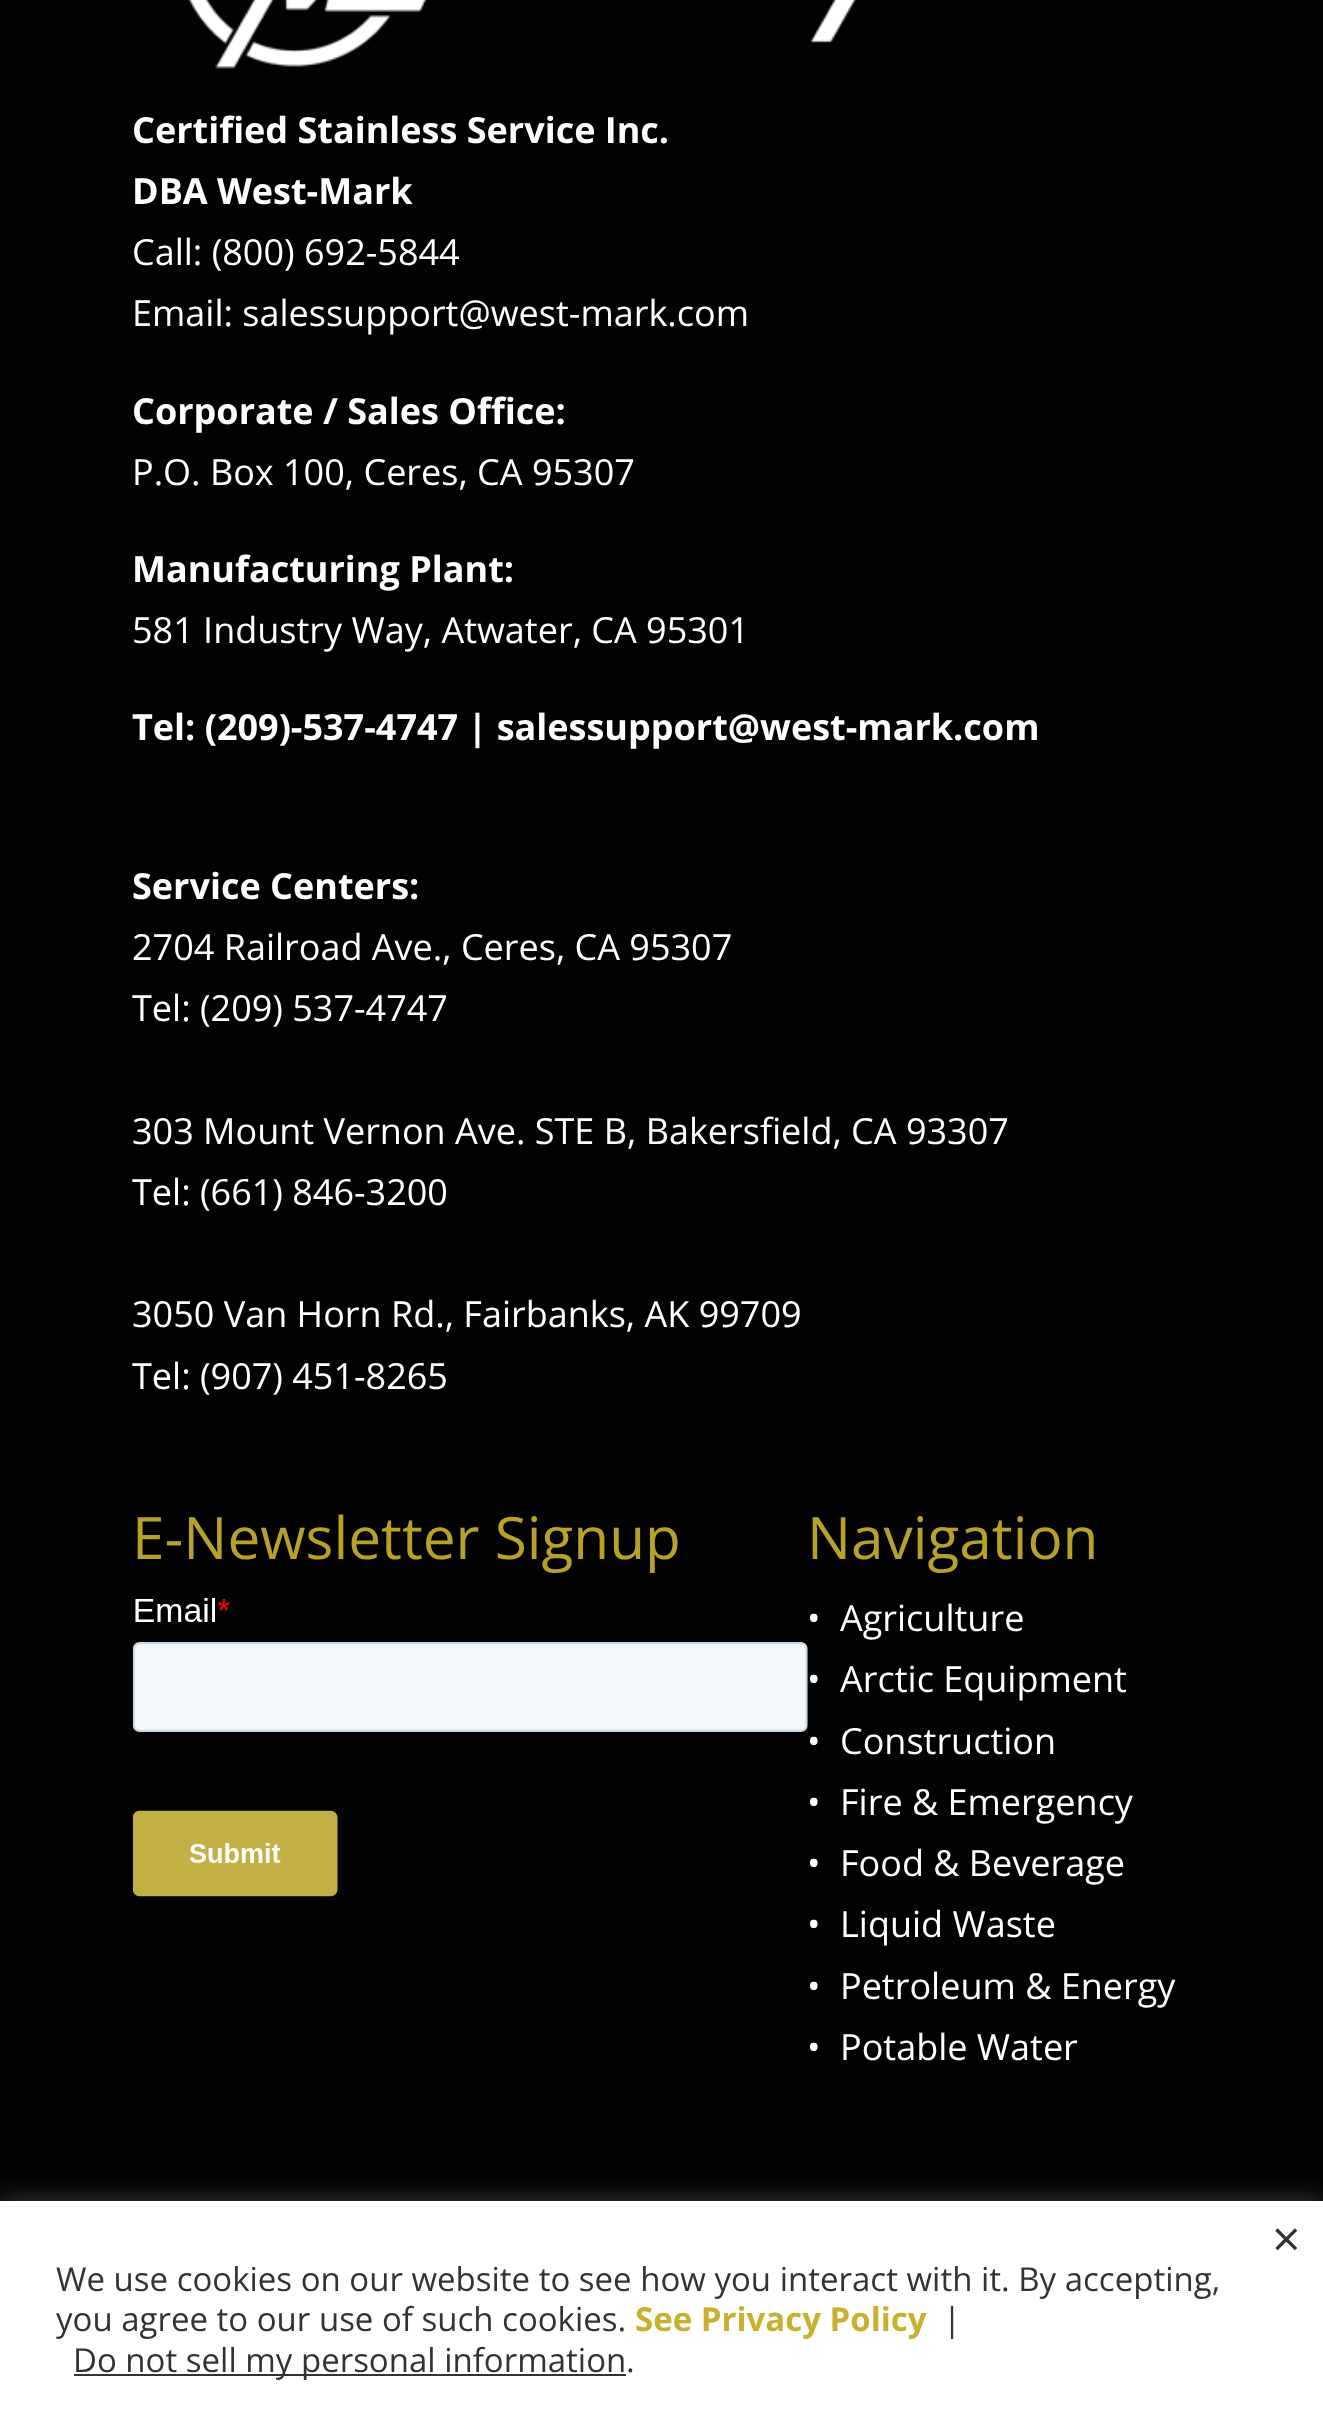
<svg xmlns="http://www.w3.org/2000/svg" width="1323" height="2433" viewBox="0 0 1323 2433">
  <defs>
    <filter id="blur1" x="-50%" y="-200%" width="200%" height="500%"><feGaussianBlur stdDeviation="11"/></filter>
  </defs>
  <rect width="100%" height="100%" fill="#020202"/>
  <image x="188" y="0" width="668" height="69" href="img1.png"/>
  <text x="132" y="143" font-family="Open Sans" font-size="36" font-weight="bold" fill="#ffffff">Certified Stainless Service Inc.</text>
  <text x="132" y="204" font-family="Open Sans" font-size="36" font-weight="bold" fill="#ffffff">DBA West-Mark</text>
  <text x="132" y="265" font-family="Open Sans" font-size="36" fill="#ffffff">Call: (800) 692-5844</text>
  <text x="132" y="326" font-family="Open Sans" font-size="36" fill="#ffffff">Email: salessupport@west-mark.com</text>
  <text x="132" y="424" font-family="Open Sans" font-size="36" font-weight="bold" fill="#ffffff">Corporate / Sales Office:</text>
  <text x="132" y="485" font-family="Open Sans" font-size="36" fill="#ffffff">P.O. Box 100, Ceres, CA 95307</text>
  <text x="132" y="582" font-family="Open Sans" font-size="36" font-weight="bold" fill="#ffffff">Manufacturing Plant:</text>
  <text x="132" y="643" font-family="Open Sans" font-size="36" fill="#ffffff">581 Industry Way, Atwater, CA 95301</text>
  <text x="132" y="740" font-family="Open Sans" font-size="36" font-weight="bold" fill="#ffffff">Tel: (209)-537-4747 | salessupport@west-mark.com</text>
  <text x="132" y="899" font-family="Open Sans" font-size="36" font-weight="bold" fill="#ffffff">Service Centers:</text>
  <text x="132" y="960" font-family="Open Sans" font-size="36" fill="#ffffff">2704 Railroad Ave., Ceres, CA 95307</text>
  <text x="132" y="1021" font-family="Open Sans" font-size="36" fill="#ffffff">Tel: (209) 537-4747</text>
  <text x="132" y="1144" font-family="Open Sans" font-size="36" fill="#ffffff">303 Mount Vernon Ave. STE B, Bakersfield, CA 93307</text>
  <text x="132" y="1205" font-family="Open Sans" font-size="36" fill="#ffffff">Tel: (661) 846-3200</text>
  <text x="132" y="1327" font-family="Open Sans" font-size="36" fill="#ffffff">3050 Van Horn Rd., Fairbanks, AK 99709</text>
  <text x="132" y="1389" font-family="Open Sans" font-size="36" fill="#ffffff">Tel: (907) 451-8265</text>
  <text x="132" y="1559" font-family="Open Sans" font-size="58.5" fill="#b7a126">E-Newsletter Signup</text>
  <image x="132" y="1598" width="676" height="299" href="img2.png"/>
  <text x="807" y="1559" font-family="Open Sans" font-size="58.5" fill="#b7a126">Navigation</text>
  <text x="807" y="1631" font-family="Open Sans" font-size="36" fill="#ffffff">•</text>
  <text x="840" y="1631" font-family="Open Sans" font-size="36" fill="#ffffff">Agriculture</text>
  <text x="807" y="1692" font-family="Open Sans" font-size="36" fill="#ffffff">•</text>
  <text x="840" y="1692" font-family="Open Sans" font-size="36" fill="#ffffff">Arctic Equipment</text>
  <text x="807" y="1754" font-family="Open Sans" font-size="36" fill="#ffffff">•</text>
  <text x="840" y="1754" font-family="Open Sans" font-size="36" fill="#ffffff">Construction</text>
  <text x="807" y="1815" font-family="Open Sans" font-size="36" fill="#ffffff">•</text>
  <text x="840" y="1815" font-family="Open Sans" font-size="36" fill="#ffffff">Fire &amp; Emergency</text>
  <text x="807" y="1876" font-family="Open Sans" font-size="36" fill="#ffffff">•</text>
  <text x="840" y="1876" font-family="Open Sans" font-size="36" fill="#ffffff">Food &amp; Beverage</text>
  <text x="807" y="1937" font-family="Open Sans" font-size="36" fill="#ffffff">•</text>
  <text x="840" y="1937" font-family="Open Sans" font-size="36" fill="#ffffff">Liquid Waste</text>
  <text x="807" y="1999" font-family="Open Sans" font-size="36" fill="#ffffff">•</text>
  <text x="840" y="1999" font-family="Open Sans" font-size="36" fill="#ffffff">Petroleum &amp; Energy</text>
  <text x="807" y="2060" font-family="Open Sans" font-size="36" fill="#ffffff">•</text>
  <text x="840" y="2060" font-family="Open Sans" font-size="36" fill="#ffffff">Potable Water</text>
  <rect x="0" y="2198" width="1323" height="234" fill="#acabab" fill-opacity="0.3" filter="url(#blur1)"/>
  <rect x="0" y="2201" width="1323" height="232" fill="#ffffff"/>
  <text x="1272" y="2257" font-family="Open Sans" font-size="50" fill="#333333">×</text>
  <text x="56" y="2291" font-family="Open Sans" font-size="33" fill="#333333">We use cookies on our website to see how you interact with it. By accepting,</text>
  <text x="56" y="2331" font-family="Open Sans" font-size="33" fill="#333333">you agree to our use of such cookies.</text>
  <text x="635" y="2331" font-family="Open Sans" font-size="33" font-weight="bold" fill="#c9b02e">See Privacy Policy</text>
  <text x="943" y="2331" font-family="Open Sans" font-size="33" fill="#333333">|</text>
  <rect x="74" y="2374" width="552" height="2" fill="#333333"/>
  <text x="73" y="2372" font-family="Open Sans" font-size="33" fill="#333333">Do not sell my personal information</text>
  <text x="626" y="2372" font-family="Open Sans" font-size="33" fill="#333333">.</text>
</svg>
